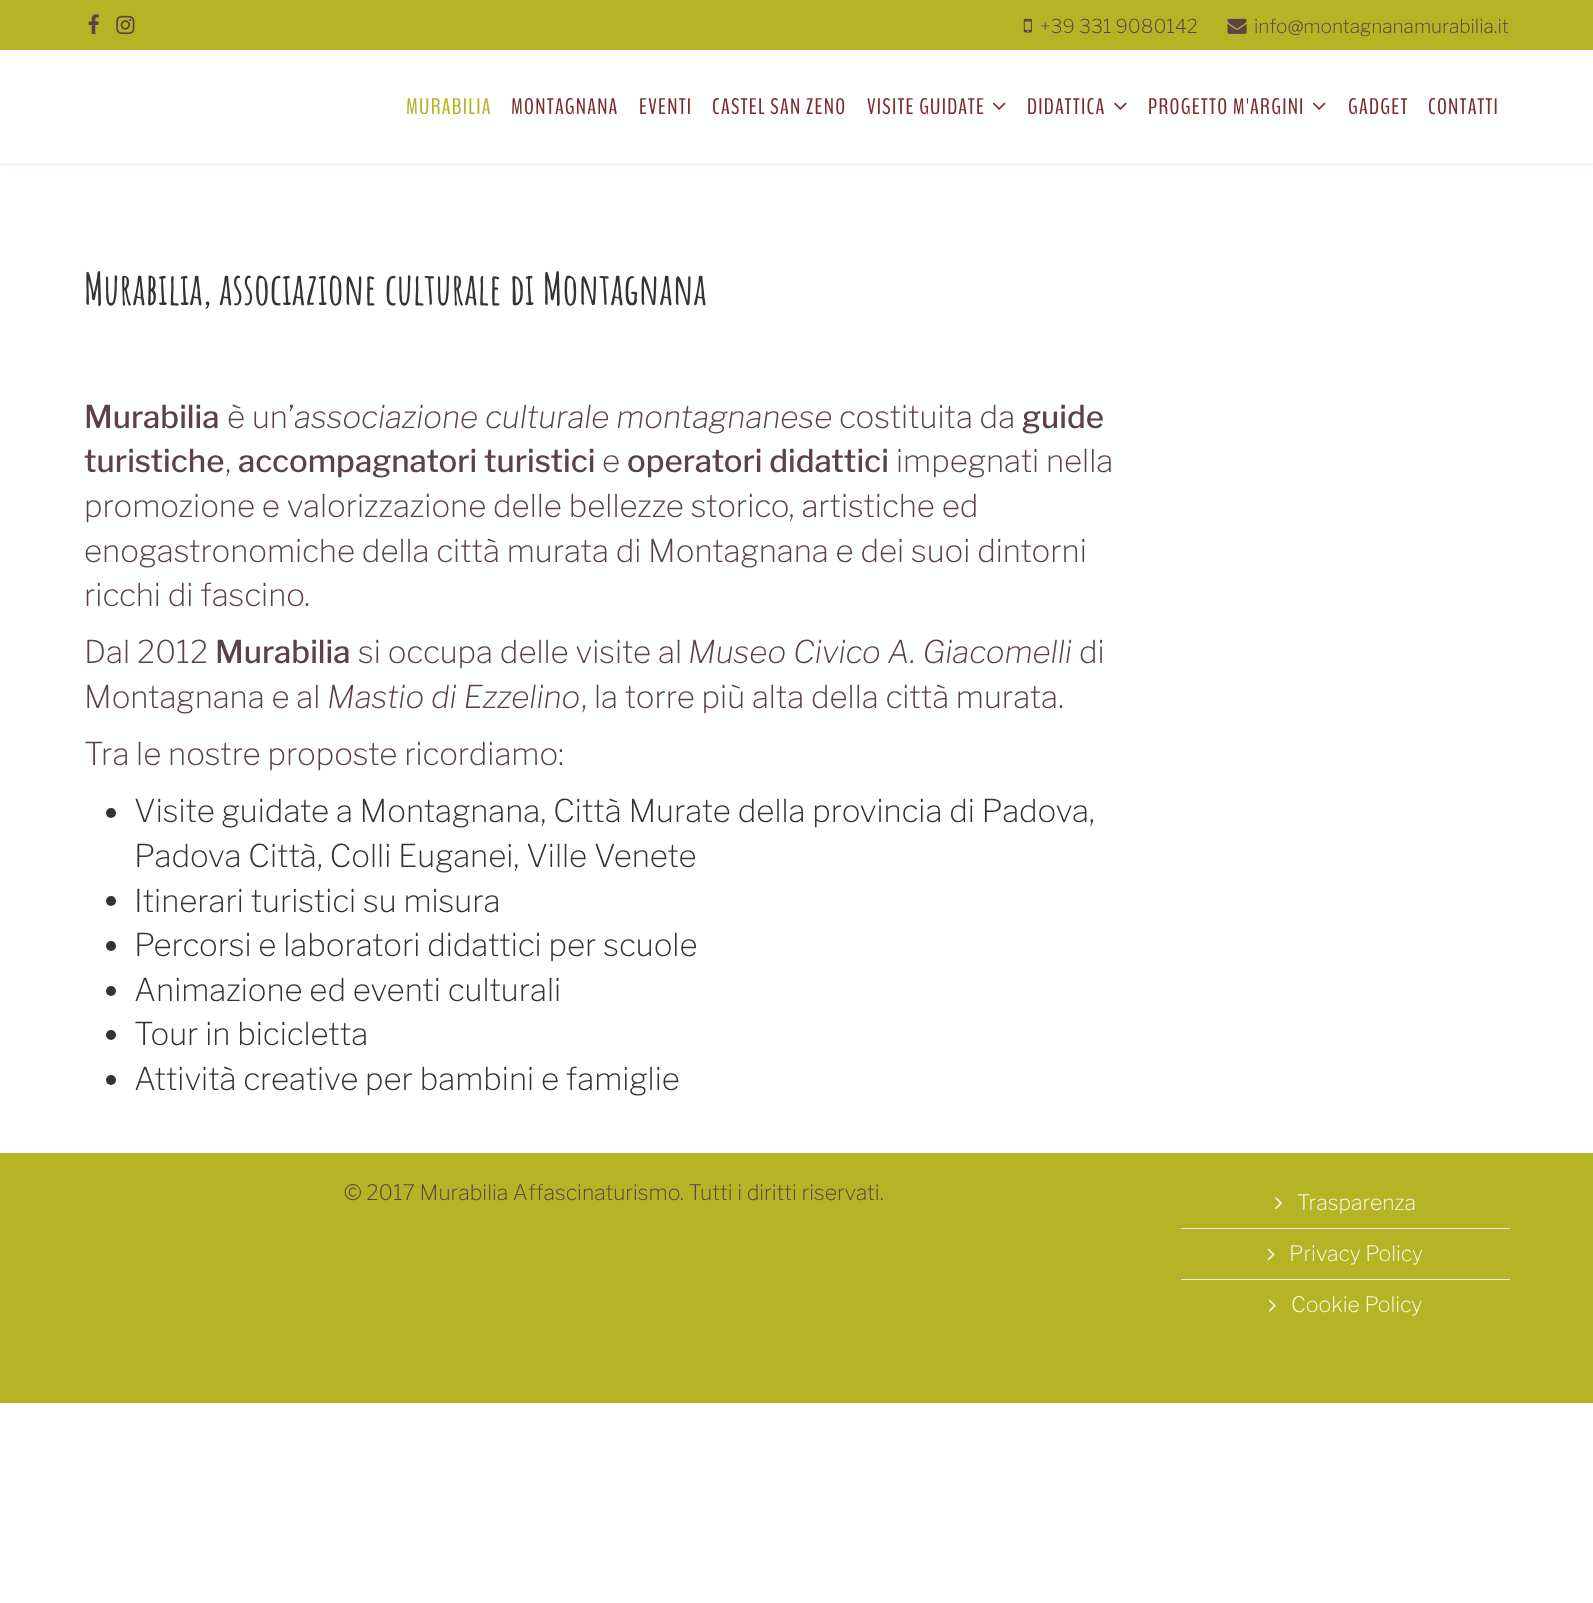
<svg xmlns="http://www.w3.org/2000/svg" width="1593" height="1603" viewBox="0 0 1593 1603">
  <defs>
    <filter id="blur1" x="-50%" y="-200%" width="200%" height="500%"><feGaussianBlur stdDeviation="2"/></filter>
  </defs>
  <rect width="100%" height="100%" fill="#ffffff"/>
  <rect x="0" y="0" width="1593" height="50" fill="#b6b325"/>
  <image x="88" y="14" width="11" height="20" href="img1.png"/>
  <image x="116" y="15" width="19" height="19" href="img2.png"/>
  <image x="1023" y="18" width="9" height="15" href="img3.png"/>
  <text x="1040" y="33" font-family="Libre Franklin" font-size="19.1" font-weight="200" fill="#5c4148">+39 331 9080142</text>
  <image x="1227" y="18" width="20" height="16" href="img4.png"/>
  <text x="1254" y="33" font-family="Libre Franklin" font-size="19.1" font-weight="200" fill="#5c4148">info@montagnanamurabilia.it</text>
  <rect x="0" y="54" width="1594" height="112" fill="#000000" fill-opacity="0.05" filter="url(#blur1)"/>
  <rect x="0" y="52" width="1593" height="111" fill="#ffffff"/>
  <text x="406" y="114" font-family="BenchNine" font-size="22.5" letter-spacing="1.25" fill="#b6b325">MURABILIA</text>
  <text x="511" y="114" font-family="BenchNine" font-size="22.5" letter-spacing="1.25" fill="#7c2e2d">MONTAGNANA</text>
  <text x="639" y="114" font-family="BenchNine" font-size="22.5" letter-spacing="1.25" fill="#7c2e2d">EVENTI</text>
  <text x="712" y="114" font-family="BenchNine" font-size="22.5" letter-spacing="1.25" fill="#7c2e2d">CASTEL SAN ZENO</text>
  <text x="867" y="114" font-family="BenchNine" font-size="22.5" letter-spacing="1.25" fill="#7c2e2d">VISITE GUIDATE</text>
  <image x="992" y="102" width="14" height="8" href="img5.png"/>
  <text x="1027" y="114" font-family="BenchNine" font-size="22.5" letter-spacing="1.25" fill="#7c2e2d">DIDATTICA</text>
  <image x="1114" y="102" width="13" height="8" href="img6.png"/>
  <text x="1148" y="114" font-family="BenchNine" font-size="22.5" letter-spacing="1.25" fill="#7c2e2d">PROGETTO M'ARGINI</text>
  <image x="1312" y="102" width="14" height="8" href="img5.png"/>
  <text x="1348" y="114" font-family="BenchNine" font-size="22.5" letter-spacing="1.25" fill="#7c2e2d">GADGET</text>
  <text x="1428" y="114" font-family="BenchNine" font-size="22.5" letter-spacing="1.25" fill="#7c2e2d">CONTATTI</text>
  <text x="84" y="305" font-family="Amatic SC" font-size="43.75" font-weight="bold" fill="#333333">Murabilia, associazione culturale di Montagnana</text>
  <text x="84" y="428" font-family="Libre Franklin" font-size="31.25" font-weight="500" fill="#5c4148">Murabilia</text>
  <text x="227" y="428" font-family="Libre Franklin" font-size="31.25" font-weight="200" fill="#5c4148">è un’</text>
  <text x="294" y="428" font-family="Libre Franklin" font-size="31.25" font-weight="200" font-style="italic" fill="#5c4148">associazione culturale montagnanese</text>
  <text x="839" y="428" font-family="Libre Franklin" font-size="31.25" font-weight="200" fill="#5c4148">costituita da</text>
  <text x="1022" y="428" font-family="Libre Franklin" font-size="31.25" font-weight="500" fill="#5c4148">guide</text>
  <text x="84" y="472" font-family="Libre Franklin" font-size="31.25" font-weight="500" fill="#5c4148">turistiche</text>
  <text x="225" y="472" font-family="Libre Franklin" font-size="31.25" font-weight="200" fill="#5c4148">,</text>
  <text x="238" y="472" font-family="Libre Franklin" font-size="31.25" font-weight="500" fill="#5c4148">accompagnatori turistici</text>
  <text x="602" y="472" font-family="Libre Franklin" font-size="31.25" font-weight="200" fill="#5c4148">e</text>
  <text x="627" y="472" font-family="Libre Franklin" font-size="31.25" font-weight="500" fill="#5c4148">operatori didattici</text>
  <text x="896" y="472" font-family="Libre Franklin" font-size="31.25" font-weight="200" fill="#5c4148">impegnati nella</text>
  <text x="84" y="517" font-family="Libre Franklin" font-size="31.25" font-weight="200" fill="#5c4148">promozione e valorizzazione delle bellezze storico, artistiche ed</text>
  <text x="84" y="562" font-family="Libre Franklin" font-size="31.25" font-weight="200" fill="#5c4148">enogastronomiche della città murata di Montagnana e dei suoi dintorni</text>
  <text x="84" y="606" font-family="Libre Franklin" font-size="31.25" font-weight="200" fill="#5c4148">ricchi di fascino.</text>
  <text x="84" y="663" font-family="Libre Franklin" font-size="31.25" font-weight="200" fill="#5c4148">Dal 2012</text>
  <text x="215" y="663" font-family="Libre Franklin" font-size="31.25" font-weight="500" fill="#5c4148">Murabilia</text>
  <text x="358" y="663" font-family="Libre Franklin" font-size="31.25" font-weight="200" fill="#5c4148">si occupa delle visite al</text>
  <text x="688" y="663" font-family="Libre Franklin" font-size="31.25" font-weight="200" font-style="italic" fill="#5c4148">Museo Civico A. Giacomelli</text>
  <text x="1079" y="663" font-family="Libre Franklin" font-size="31.25" font-weight="200" fill="#5c4148">di</text>
  <text x="84" y="708" font-family="Libre Franklin" font-size="31.25" font-weight="200" fill="#5c4148">Montagnana e al</text>
  <text x="327" y="708" font-family="Libre Franklin" font-size="31.25" font-weight="200" font-style="italic" fill="#5c4148">Mastio di Ezzelino</text>
  <text x="581" y="708" font-family="Libre Franklin" font-size="31.25" font-weight="200" fill="#5c4148">, la torre più alta della città murata.</text>
  <text x="84" y="765" font-family="Libre Franklin" font-size="31.25" font-weight="200" fill="#5c4148">Tra le nostre proposte ricordiamo:</text>
  <circle cx="111" cy="813" r="5" fill="#333333"/>
  <text x="134" y="822" font-family="Libre Franklin" font-size="31.25" font-weight="200" fill="#333333">Visite guidate a Montagnana, Città Murate della provincia di Padova,</text>
  <text x="134" y="867" font-family="Libre Franklin" font-size="31.25" font-weight="200" fill="#333333">Padova Città, Colli Euganei, Ville Venete</text>
  <circle cx="111" cy="901" r="5" fill="#333333"/>
  <text x="134" y="912" font-family="Libre Franklin" font-size="31.25" font-weight="200" fill="#333333">Itinerari turistici su misura</text>
  <circle cx="111" cy="946" r="5" fill="#333333"/>
  <text x="134" y="956" font-family="Libre Franklin" font-size="31.25" font-weight="200" fill="#333333">Percorsi e laboratori didattici per scuole</text>
  <circle cx="111" cy="991" r="5" fill="#333333"/>
  <text x="134" y="1001" font-family="Libre Franklin" font-size="31.25" font-weight="200" fill="#333333">Animazione ed eventi culturali</text>
  <circle cx="111" cy="1035" r="5" fill="#333333"/>
  <text x="134" y="1045" font-family="Libre Franklin" font-size="31.25" font-weight="200" fill="#333333">Tour in bicicletta</text>
  <circle cx="111" cy="1080" r="5" fill="#333333"/>
  <text x="134" y="1090" font-family="Libre Franklin" font-size="31.25" font-weight="200" fill="#333333">Attività creative per bambini e famiglie</text>
  <rect x="0" y="1153" width="1593" height="250" fill="#b6b325"/>
  <text x="344" y="1200" font-family="Libre Franklin" font-size="21.25" font-weight="200" fill="#5c4148">© 2017 Murabilia Affascinaturismo. Tutti i diritti riservati.</text>
  <rect x="1181" y="1228" width="329" height="1" fill="#e8e8e8"/>
  <image x="1275" y="1197" width="7" height="12" href="img7.png"/>
  <text x="1297" y="1210" font-family="Libre Franklin" font-size="21.25" font-weight="200" fill="#f8f7e9">Trasparenza</text>
  <rect x="1181" y="1279" width="329" height="1" fill="#e8e8e8"/>
  <image x="1267" y="1248" width="8" height="13" href="img8.png"/>
  <text x="1289" y="1261" font-family="Libre Franklin" font-size="21.25" font-weight="200" fill="#f8f7e9">Privacy Policy</text>
  <image x="1269" y="1299" width="7" height="13" href="img9.png"/>
  <text x="1291" y="1312" font-family="Libre Franklin" font-size="21.25" font-weight="200" fill="#f8f7e9">Cookie Policy</text>
</svg>
